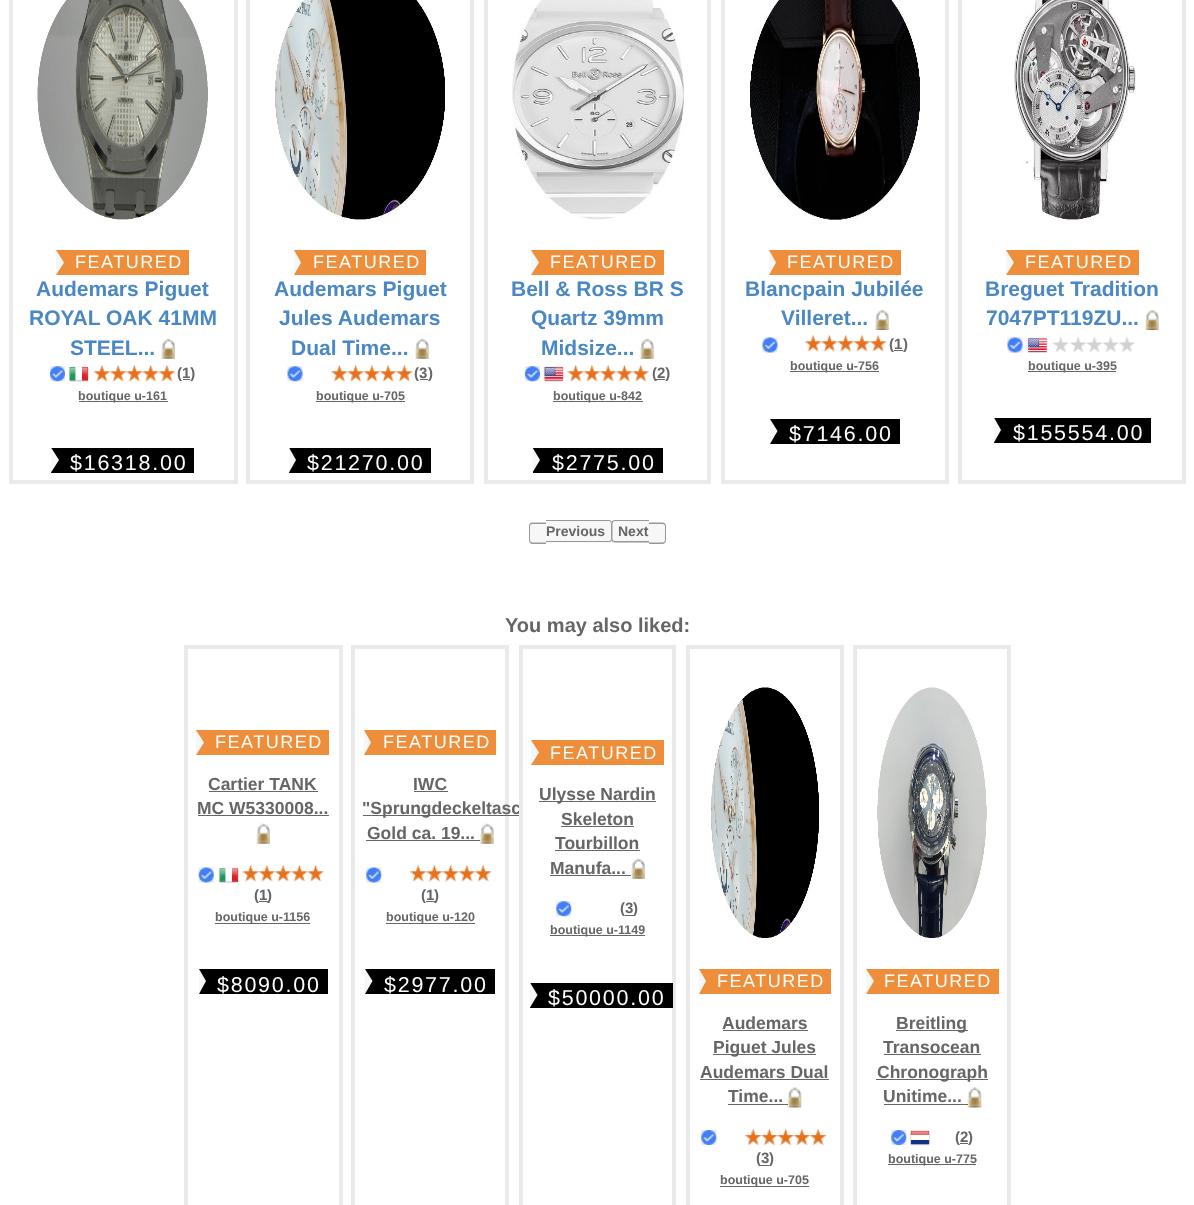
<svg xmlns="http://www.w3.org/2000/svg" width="1194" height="1205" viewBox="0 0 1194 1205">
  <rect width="100%" height="100%" fill="#ffffff"/>
  <rect x="11" y="-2" width="225" height="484" fill="none" stroke="#eaeaea" stroke-width="4"/>
  <image x="37" y="0" width="171" height="220" href="img1.png"/>
  <rect x="56" y="250" width="133" height="25" fill="#ef8e3a"/>
  <path d="M56 275V250L64 262.5Z" fill="#f7f7f7"/>
  <text x="75" y="268" font-family="Liberation Sans" font-size="18" letter-spacing="1.5" fill="#ffffff">FEATURED</text>
  <text x="36" y="296" font-family="Liberation Sans" font-size="21" font-weight="bold" fill="#4987c5">Audemars Piguet</text>
  <text x="29" y="325" font-family="Liberation Sans" font-size="21" font-weight="bold" fill="#4987c5">ROYAL OAK 41MM</text>
  <text x="70" y="355" font-family="Liberation Sans" font-size="21" font-weight="bold" fill="#4987c5">STEEL...</text>
  <image x="161" y="338" width="14" height="21" href="img2.png"/>
  <image x="50" y="366" width="15" height="16" href="img3.png"/>
  <image x="68" y="366" width="21" height="16" href="img4.png"/>
  <image x="93" y="364" width="83" height="18" href="img5.png"/>
  <text x="177" y="378" font-family="Liberation Sans" font-size="15" font-weight="bold" fill="#666666">(1)</text>
  <rect x="183" y="379" width="7" height="1" fill="#666666"/>
  <rect x="79" y="401" width="89" height="1" fill="#666666"/>
  <text x="78" y="400" font-family="Liberation Sans" font-size="12.5" font-weight="bold" fill="#666666">boutique u-161</text>
  <rect x="51" y="448" width="143" height="25" fill="#000000"/>
  <path d="M51 472.5V447.5L59 460Z" fill="#f7f7f7"/>
  <text x="70" y="470" font-family="Liberation Sans" font-size="21.5" letter-spacing="1.75" fill="#ffffff">$16318.00</text>
  <rect x="248" y="-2" width="224" height="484" fill="none" stroke="#eaeaea" stroke-width="4"/>
  <image x="275" y="0" width="170" height="220" href="img6.png"/>
  <rect x="294" y="250" width="132" height="25" fill="#ef8e3a"/>
  <path d="M294 275V250L301 262.5Z" fill="#f7f7f7"/>
  <text x="313" y="268" font-family="Liberation Sans" font-size="18" letter-spacing="1.5" fill="#ffffff">FEATURED</text>
  <text x="274" y="296" font-family="Liberation Sans" font-size="21" font-weight="bold" fill="#4987c5">Audemars Piguet</text>
  <text x="279" y="325" font-family="Liberation Sans" font-size="21" font-weight="bold" fill="#4987c5">Jules Audemars</text>
  <text x="291" y="355" font-family="Liberation Sans" font-size="21" font-weight="bold" fill="#4987c5">Dual Time...</text>
  <image x="415" y="338" width="14" height="21" href="img7.png"/>
  <image x="287" y="366" width="16" height="16" href="img8.png"/>
  <image x="331" y="364" width="82" height="18" href="img9.png"/>
  <text x="414" y="378" font-family="Liberation Sans" font-size="15" font-weight="bold" fill="#666666">(3</text>
  <rect x="420" y="379" width="8" height="1" fill="#666666"/>
  <text x="428" y="378" font-family="Liberation Sans" font-size="15" font-weight="bold" fill="#666666">)</text>
  <rect x="316" y="401" width="89" height="1" fill="#666666"/>
  <text x="316" y="400" font-family="Liberation Sans" font-size="12.5" font-weight="bold" fill="#666666">boutique u-705</text>
  <rect x="289" y="448" width="142" height="25" fill="#000000"/>
  <path d="M289 472.5V447.5L296 460Z" fill="#f7f7f7"/>
  <text x="307" y="470" font-family="Liberation Sans" font-size="21.5" letter-spacing="1.75" fill="#ffffff">$21270.00</text>
  <rect x="486" y="-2" width="223" height="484" fill="none" stroke="#eaeaea" stroke-width="4"/>
  <image x="512" y="0" width="172" height="220" href="img10.png"/>
  <rect x="531" y="250" width="133" height="25" fill="#ef8e3a"/>
  <path d="M531 275V250L539 262.5Z" fill="#f7f7f7"/>
  <text x="550" y="268" font-family="Liberation Sans" font-size="18" letter-spacing="1.5" fill="#ffffff">FEATURED</text>
  <text x="511" y="296" font-family="Liberation Sans" font-size="21" font-weight="bold" fill="#4987c5">Bell &amp; Ross BR S</text>
  <text x="531" y="325" font-family="Liberation Sans" font-size="21" font-weight="bold" fill="#4987c5">Quartz 39mm</text>
  <text x="541" y="355" font-family="Liberation Sans" font-size="21" font-weight="bold" fill="#4987c5">Midsize...</text>
  <image x="640" y="338" width="14" height="21" href="img11.png"/>
  <image x="525" y="366" width="15" height="16" href="img12.png"/>
  <image x="543" y="366" width="21" height="16" href="img13.png"/>
  <image x="567" y="364" width="82" height="18" href="img14.png"/>
  <text x="652" y="378" font-family="Liberation Sans" font-size="15" font-weight="bold" fill="#666666">(2)</text>
  <rect x="656" y="379" width="9" height="1" fill="#666666"/>
  <rect x="553" y="401" width="90" height="1" fill="#666666"/>
  <text x="553" y="400" font-family="Liberation Sans" font-size="12.5" font-weight="bold" fill="#666666">boutique u-842</text>
  <rect x="533" y="448" width="130" height="25" fill="#000000"/>
  <path d="M532.5 472.5V447.5L540 460Z" fill="#f7f7f7"/>
  <text x="552" y="470" font-family="Liberation Sans" font-size="21.5" letter-spacing="1.75" fill="#ffffff">$2775.00</text>
  <rect x="723" y="-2" width="224" height="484" fill="none" stroke="#eaeaea" stroke-width="4"/>
  <image x="750" y="0" width="170" height="220" href="img15.png"/>
  <rect x="769" y="250" width="132" height="25" fill="#ef8e3a"/>
  <path d="M769 275V250L776 262.5Z" fill="#f7f7f7"/>
  <text x="787" y="268" font-family="Liberation Sans" font-size="18" letter-spacing="1.5" fill="#ffffff">FEATURED</text>
  <text x="745" y="296" font-family="Liberation Sans" font-size="21" font-weight="bold" fill="#4987c5">Blancpain Jubilée</text>
  <text x="781" y="325" font-family="Liberation Sans" font-size="21" font-weight="bold" fill="#4987c5">Villeret...</text>
  <image x="875" y="310" width="14" height="20" href="img16.png"/>
  <image x="762" y="337" width="16" height="16" href="img17.png"/>
  <image x="805" y="334" width="82" height="18" href="img18.png"/>
  <text x="889" y="349" font-family="Liberation Sans" font-size="15" font-weight="bold" fill="#666666">(1</text>
  <rect x="894" y="350" width="9" height="1" fill="#666666"/>
  <text x="903" y="349" font-family="Liberation Sans" font-size="15" font-weight="bold" fill="#666666">)</text>
  <rect x="790" y="371" width="89" height="1" fill="#666666"/>
  <text x="790" y="370" font-family="Liberation Sans" font-size="12.5" font-weight="bold" fill="#666666">boutique u-756</text>
  <rect x="770" y="419" width="130" height="25" fill="#000000"/>
  <path d="M770 444V419L777.5 431Z" fill="#f7f7f7"/>
  <text x="789" y="441" font-family="Liberation Sans" font-size="21.5" letter-spacing="1.75" fill="#ffffff">$7146.00</text>
  <rect x="960" y="-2" width="224" height="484" fill="none" stroke="#eaeaea" stroke-width="4"/>
  <image x="1014" y="0" width="122" height="221" href="img19.png"/>
  <rect x="1006" y="250" width="133" height="25" fill="#ef8e3a"/>
  <path d="M1006 275V250L1014 262.5Z" fill="#f7f7f7"/>
  <text x="1025" y="268" font-family="Liberation Sans" font-size="18" letter-spacing="1.5" fill="#ffffff">FEATURED</text>
  <text x="985" y="296" font-family="Liberation Sans" font-size="21" font-weight="bold" fill="#4987c5">Breguet Tradition</text>
  <text x="986" y="325" font-family="Liberation Sans" font-size="21" font-weight="bold" fill="#4987c5">7047PT119ZU...</text>
  <image x="1145" y="310" width="14" height="20" href="img20.png"/>
  <image x="1007" y="337" width="16" height="16" href="img21.png"/>
  <image x="1027" y="337" width="21" height="16" href="img22.png"/>
  <image x="1052" y="336" width="83" height="17" href="img23.png"/>
  <rect x="1028" y="371" width="88" height="1" fill="#666666"/>
  <text x="1028" y="370" font-family="Liberation Sans" font-size="12.5" font-weight="bold" fill="#666666">boutique u-395</text>
  <rect x="994" y="418" width="157" height="25" fill="#000000"/>
  <path d="M994 442.5V417.5L1001 430Z" fill="#f7f7f7"/>
  <text x="1013" y="440" font-family="Liberation Sans" font-size="21.5" letter-spacing="1.75" fill="#ffffff">$155554.00</text>
  <path d="M546 520H609C611 520 613 522 613 524V539C613 541 611 543 609 543H546Z" fill="#f7f7f7"/>
  <path d="M546 520H609C611 520 612 522 612 524V539C612 541 611 542 609 542H546ZM546 521H609C610 521 611 522 611 524V539C611 540 610 541 609 541H546Z" fill="#999999" fill-rule="evenodd"/>
  <text x="546" y="536" font-family="Liberation Sans" font-size="14" font-weight="bold" fill="#666666">Previous</text>
  <path d="M533 523H546V544H533C531 544 529 542 529 540V527C529 525 531 523 533 523Z" fill="#f7f7f7"/>
  <path d="M532.5 522.5H546V544H532.5C530.5 544 529 542 529 540V526C529 524 530.5 522.5 532.5 522.5ZM532.5 524H546V542.5H532.5C531 542.5 530 541.5 530 540V526C530 525 531 524 532.5 524Z" fill="#999999" fill-rule="evenodd"/>
  <path d="M615 520H649V543H615C613 543 611 541 611 539V524C611 522 613 520 615 520Z" fill="#f7f7f7"/>
  <path d="M615 520H649V542.5H615C613 542.5 611 541 611 539V524C611 521.5 613 520 615 520ZM615 521H649V541H615C613.5 541 612.5 540 612.5 539V524C612.5 522.5 613.5 521 615 521Z" fill="#999999" fill-rule="evenodd"/>
  <text x="618" y="536" font-family="Liberation Sans" font-size="14" font-weight="bold" fill="#666666">Next</text>
  <path d="M649 523H662C664 523 666 525 666 527V540C666 542 664 544 662 544H649Z" fill="#f7f7f7"/>
  <path d="M649 522.5H662.5C664.5 522.5 666 524 666 526V540C666 542 664.5 544 662.5 544H649ZM649 524H662.5C664 524 665 525 665 526V540C665 541.5 664 542.5 662.5 542.5H649Z" fill="#999999" fill-rule="evenodd"/>
  <text x="505" y="632" font-family="Liberation Sans" font-size="20" font-weight="bold" fill="#666666">You may also liked:</text>
  <rect x="186" y="647" width="155" height="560" fill="none" stroke="#eaeaea" stroke-width="4"/>
  <rect x="196" y="730" width="133" height="25" fill="#ef8e3a"/>
  <path d="M196 755V730L204 742.5Z" fill="#f7f7f7"/>
  <text x="215" y="748" font-family="Liberation Sans" font-size="18" letter-spacing="1.5" fill="#ffffff">FEATURED</text>
  <text x="208" y="790" font-family="Liberation Sans" font-size="17.5" font-weight="bold" fill="#666666">Cartier TANK</text>
  <rect x="209" y="791" width="109" height="1" fill="#666666"/>
  <text x="197" y="814" font-family="Liberation Sans" font-size="17.5" font-weight="bold" fill="#666666">MC W5330008...</text>
  <rect x="198" y="815" width="131" height="1" fill="#666666"/>
  <image x="256" y="823" width="14" height="21" href="img24.png"/>
  <image x="198" y="867" width="16" height="16" href="img25.png"/>
  <image x="218" y="867" width="21" height="16" href="img26.png"/>
  <image x="242" y="864" width="82" height="18" href="img27.png"/>
  <text x="254" y="900" font-family="Liberation Sans" font-size="15" font-weight="bold" fill="#666666">(1</text>
  <rect x="259" y="901" width="9" height="1" fill="#666666"/>
  <text x="267" y="900" font-family="Liberation Sans" font-size="15" font-weight="bold" fill="#666666">)</text>
  <rect x="215" y="923" width="95" height="1" fill="#666666"/>
  <text x="215" y="921" font-family="Liberation Sans" font-size="12.5" font-weight="bold" fill="#666666">boutique u-1156</text>
  <rect x="199" y="969" width="129" height="25" fill="#000000"/>
  <path d="M199 994V969L206 981Z" fill="#f7f7f7"/>
  <text x="217" y="992" font-family="Liberation Sans" font-size="21.5" letter-spacing="1.75" fill="#ffffff">$8090.00</text>
  <rect x="353" y="647" width="154" height="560" fill="none" stroke="#eaeaea" stroke-width="4"/>
  <rect x="364" y="730" width="132" height="25" fill="#ef8e3a"/>
  <path d="M364 755V730L371 742.5Z" fill="#f7f7f7"/>
  <text x="383" y="748" font-family="Liberation Sans" font-size="18" letter-spacing="1.5" fill="#ffffff">FEATURED</text>
  <text x="413" y="790" font-family="Liberation Sans" font-size="17.5" font-weight="bold" fill="#666666">IWC</text>
  <rect x="414" y="791" width="34" height="1" fill="#666666"/>
  <rect x="363" y="815" width="156" height="1" fill="#666666"/>
  <text x="362" y="814" font-family="Liberation Sans" font-size="17.5" font-weight="bold" fill="#666666">"Sprungdeckeltasc</text>
  <text x="367" y="839" font-family="Liberation Sans" font-size="17.5" font-weight="bold" fill="#666666">Gold ca. 19...</text>
  <rect x="366" y="840" width="114" height="1" fill="#666666"/>
  <image x="480" y="823" width="14" height="21" href="img7.png"/>
  <image x="366" y="867" width="16" height="16" href="img28.png"/>
  <image x="410" y="864" width="82" height="18" href="img29.png"/>
  <text x="421" y="900" font-family="Liberation Sans" font-size="15" font-weight="bold" fill="#666666">(1</text>
  <rect x="426" y="901" width="9" height="1" fill="#666666"/>
  <text x="434" y="900" font-family="Liberation Sans" font-size="15" font-weight="bold" fill="#666666">)</text>
  <rect x="386" y="923" width="89" height="1" fill="#666666"/>
  <text x="386" y="921" font-family="Liberation Sans" font-size="12.5" font-weight="bold" fill="#666666">boutique u-120</text>
  <rect x="365" y="969" width="130" height="25" fill="#000000"/>
  <path d="M365 994V969L372.5 981Z" fill="#f7f7f7"/>
  <text x="384" y="992" font-family="Liberation Sans" font-size="21.5" letter-spacing="1.75" fill="#ffffff">$2977.00</text>
  <rect x="521" y="647" width="153" height="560" fill="none" stroke="#eaeaea" stroke-width="4"/>
  <rect x="531" y="740" width="133" height="25" fill="#ef8e3a"/>
  <path d="M531 765V740L539 752.5Z" fill="#f7f7f7"/>
  <text x="550" y="759" font-family="Liberation Sans" font-size="18" letter-spacing="1.5" fill="#ffffff">FEATURED</text>
  <rect x="539" y="801" width="117" height="1" fill="#666666"/>
  <text x="539" y="800" font-family="Liberation Sans" font-size="17.5" font-weight="bold" fill="#666666">Ulysse Nardin</text>
  <text x="561" y="825" font-family="Liberation Sans" font-size="17.5" font-weight="bold" fill="#666666">Skeleton</text>
  <rect x="561" y="826" width="73" height="1" fill="#666666"/>
  <text x="555" y="849" font-family="Liberation Sans" font-size="17.5" font-weight="bold" fill="#666666">Tourbillon</text>
  <rect x="555" y="850" width="85" height="1" fill="#666666"/>
  <text x="550" y="874" font-family="Liberation Sans" font-size="17.5" font-weight="bold" fill="#666666">Manufa...</text>
  <rect x="550" y="875" width="81" height="1" fill="#666666"/>
  <image x="631" y="858" width="14" height="21" href="img2.png"/>
  <image x="556" y="901" width="16" height="16" href="img30.png"/>
  <text x="620" y="913" font-family="Liberation Sans" font-size="15" font-weight="bold" fill="#666666">(3</text>
  <rect x="625" y="915" width="9" height="1" fill="#666666"/>
  <text x="633" y="913" font-family="Liberation Sans" font-size="15" font-weight="bold" fill="#666666">)</text>
  <rect x="550" y="935" width="95" height="1" fill="#666666"/>
  <text x="550" y="934" font-family="Liberation Sans" font-size="12.5" font-weight="bold" fill="#666666">boutique u-1149</text>
  <rect x="530" y="983" width="143" height="25" fill="#000000"/>
  <path d="M530 1007.5V982.5L537.5 995Z" fill="#f7f7f7"/>
  <text x="548" y="1005" font-family="Liberation Sans" font-size="21.5" letter-spacing="1.75" fill="#ffffff">$50000.00</text>
  <rect x="688" y="647" width="154" height="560" fill="none" stroke="#eaeaea" stroke-width="4"/>
  <image x="711" y="687" width="108" height="252" href="img31.png"/>
  <rect x="699" y="969" width="132" height="25" fill="#ef8e3a"/>
  <path d="M699 994V969L706 981Z" fill="#f7f7f7"/>
  <text x="717" y="987" font-family="Liberation Sans" font-size="18" letter-spacing="1.5" fill="#ffffff">FEATURED</text>
  <text x="722" y="1029" font-family="Liberation Sans" font-size="17.5" font-weight="bold" fill="#666666">Audemars</text>
  <rect x="723" y="1030" width="85" height="1" fill="#666666"/>
  <rect x="713" y="1054" width="103" height="1" fill="#666666"/>
  <text x="713" y="1053" font-family="Liberation Sans" font-size="17.5" font-weight="bold" fill="#666666">Piguet Jules</text>
  <text x="700" y="1078" font-family="Liberation Sans" font-size="17.5" font-weight="bold" fill="#666666">Audemars Dual</text>
  <rect x="700" y="1079" width="129" height="1" fill="#666666"/>
  <text x="728" y="1102" font-family="Liberation Sans" font-size="17.5" font-weight="bold" fill="#666666">Time...</text>
  <rect x="728" y="1104" width="60" height="1" fill="#666666"/>
  <image x="787" y="1087" width="15" height="21" href="img32.png"/>
  <image x="701" y="1130" width="16" height="15" href="img33.png"/>
  <image x="745" y="1128" width="82" height="18" href="img34.png"/>
  <text x="756" y="1163" font-family="Liberation Sans" font-size="15" font-weight="bold" fill="#666666">(3</text>
  <rect x="760" y="1165" width="9" height="1" fill="#666666"/>
  <text x="769" y="1163" font-family="Liberation Sans" font-size="15" font-weight="bold" fill="#666666">)</text>
  <rect x="720" y="1186" width="89" height="1" fill="#666666"/>
  <text x="720" y="1184" font-family="Liberation Sans" font-size="12.5" font-weight="bold" fill="#666666">boutique u-705</text>
  <rect x="855" y="647" width="154" height="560" fill="none" stroke="#eaeaea" stroke-width="4"/>
  <image x="877" y="687" width="110" height="252" href="img35.png"/>
  <rect x="866" y="969" width="133" height="25" fill="#ef8e3a"/>
  <path d="M866 994V969L874 981Z" fill="#f7f7f7"/>
  <text x="884" y="987" font-family="Liberation Sans" font-size="18" letter-spacing="1.5" fill="#ffffff">FEATURED</text>
  <rect x="896" y="1030" width="72" height="1" fill="#666666"/>
  <text x="896" y="1029" font-family="Liberation Sans" font-size="17.5" font-weight="bold" fill="#666666">Breitling</text>
  <text x="883" y="1053" font-family="Liberation Sans" font-size="17.5" font-weight="bold" fill="#666666">Transocean</text>
  <rect x="884" y="1054" width="97" height="1" fill="#666666"/>
  <rect x="876" y="1079" width="112" height="1" fill="#666666"/>
  <text x="877" y="1078" font-family="Liberation Sans" font-size="17.5" font-weight="bold" fill="#666666">Chronograph</text>
  <text x="883" y="1102" font-family="Liberation Sans" font-size="17.5" font-weight="bold" fill="#666666">Unitime...</text>
  <rect x="884" y="1104" width="84" height="1" fill="#666666"/>
  <image x="967" y="1087" width="15" height="21" href="img36.png"/>
  <image x="891" y="1130" width="16" height="15" href="img33.png"/>
  <image x="910" y="1130" width="20" height="16" href="img37.png"/>
  <text x="955" y="1142" font-family="Liberation Sans" font-size="15" font-weight="bold" fill="#666666">(2</text>
  <rect x="960" y="1143" width="8" height="1" fill="#666666"/>
  <text x="968" y="1142" font-family="Liberation Sans" font-size="15" font-weight="bold" fill="#666666">)</text>
  <rect x="888" y="1164" width="88" height="1" fill="#666666"/>
  <text x="888" y="1163" font-family="Liberation Sans" font-size="12.5" font-weight="bold" fill="#666666">boutique u-775</text>
</svg>
